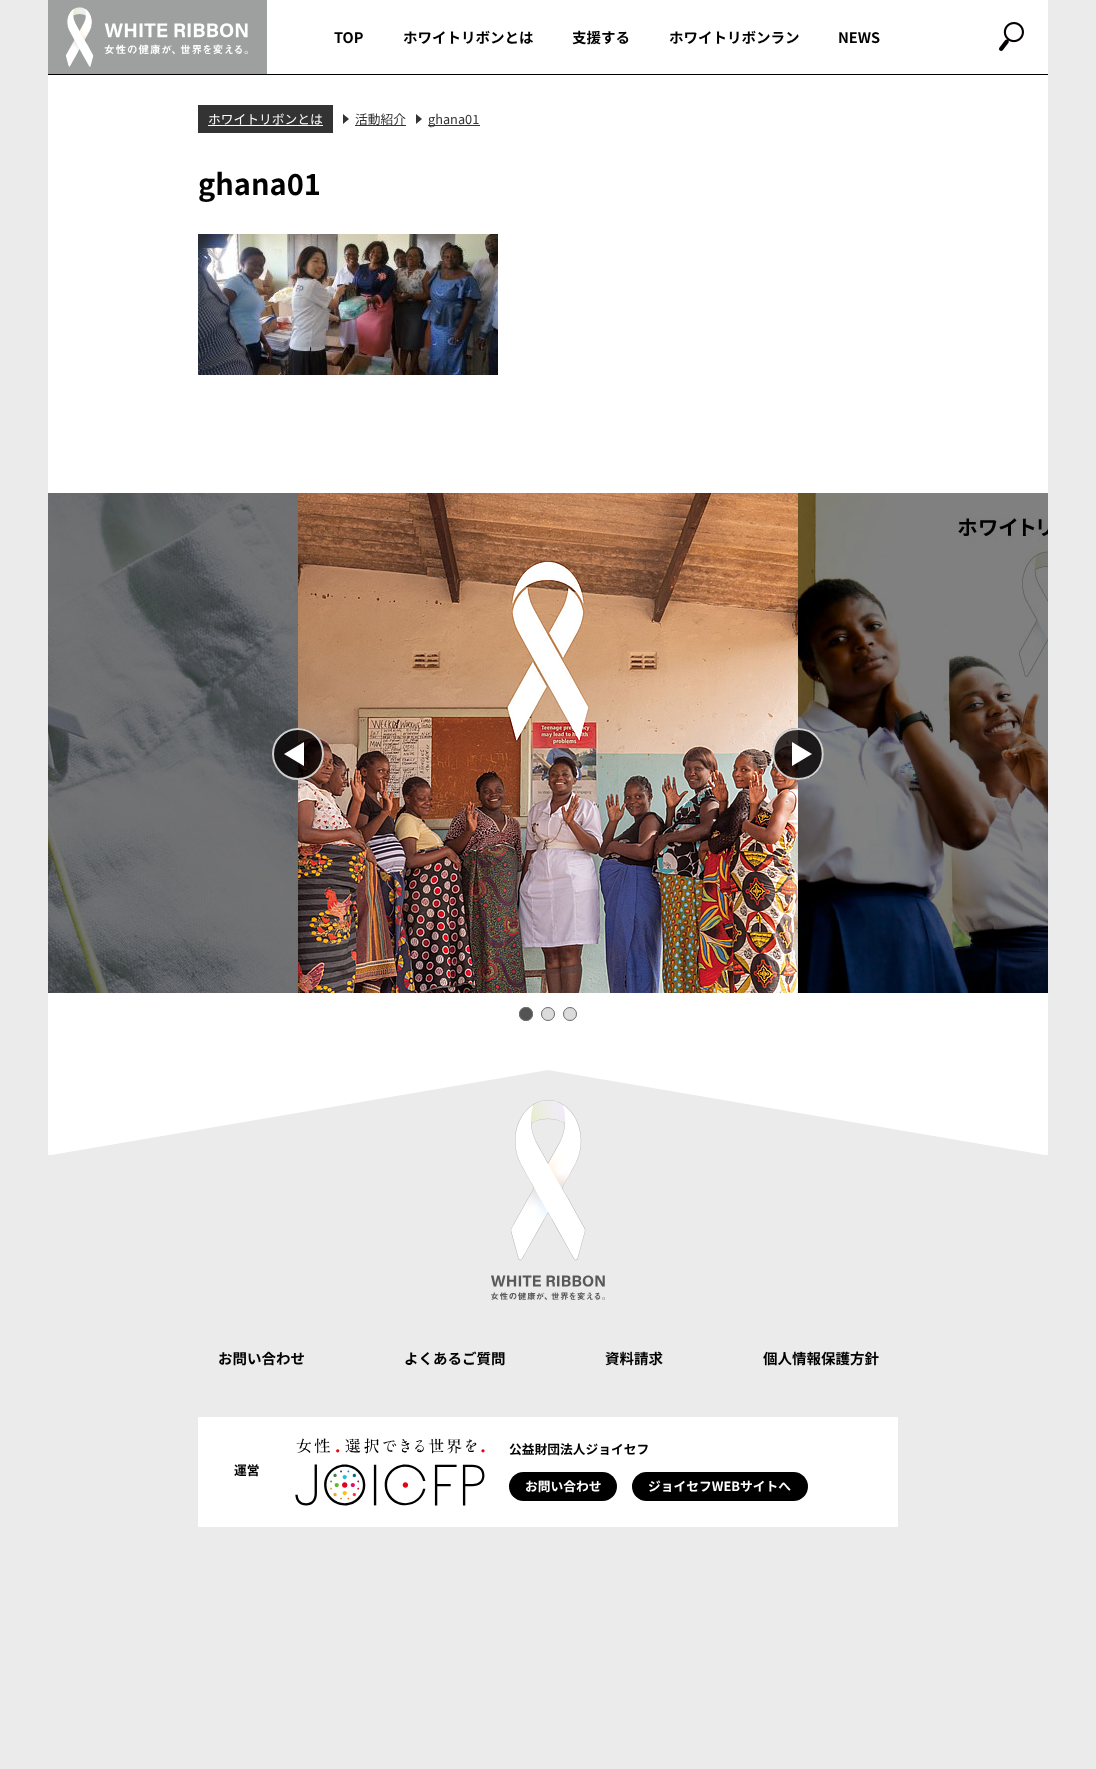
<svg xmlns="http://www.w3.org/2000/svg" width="1096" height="1769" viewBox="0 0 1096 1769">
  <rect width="100%" height="100%" fill="#ebebeb"/>
  <rect x="267" y="0" width="781" height="74" fill="#ffffff"/>
  <rect x="48" y="74" width="1000" height="1" fill="#000000"/>
  <image x="48" y="0" width="219" height="74" href="img1.png"/>
  <text x="334" y="43" font-family="Noto Sans JP" font-size="14.5" font-weight="bold" fill="#000000">TOP</text>
  <text x="403" y="43" font-family="Noto Sans JP" font-size="14.5" font-weight="bold" fill="#000000">ホワイトリボンとは</text>
  <text x="572" y="43" font-family="Noto Sans JP" font-size="14.5" font-weight="bold" fill="#000000">支援する</text>
  <text x="669" y="43" font-family="Noto Sans JP" font-size="14.5" font-weight="bold" fill="#000000">ホワイトリボンラン</text>
  <text x="838" y="43" font-family="Noto Sans JP" font-size="14.5" font-weight="bold" fill="#000000">NEWS</text>
  <image x="999" y="22" width="25" height="29" href="img2.png"/>
  <rect x="48" y="75" width="1000" height="418" fill="#ffffff"/>
  <rect x="198" y="105" width="135" height="28" fill="#333333"/>
  <text x="208" y="124" font-family="Noto Sans JP" font-size="12.75" fill="#ffffff">ホワイトリボンとは</text>
  <rect x="208" y="125" width="115" height="1" fill="#ffffff"/>
  <path d="M343 124V114L349 119Z" fill="#333333"/>
  <rect x="355" y="125" width="51" height="1" fill="#333333"/>
  <text x="355" y="124" font-family="Noto Sans JP" font-size="12.75" fill="#333333">活動紹介</text>
  <path d="M416 124V114L422 119Z" fill="#333333"/>
  <rect x="428" y="125" width="52" height="1" fill="#333333"/>
  <text x="428" y="124" font-family="Noto Sans JP" font-size="12.75" fill="#333333">ghana01</text>
  <text x="198" y="195" font-family="Noto Sans JP" font-size="29" font-weight="bold" fill="#000000">ghana01</text>
  <image x="198" y="234" width="300" height="141" href="img3.png"/>
  <rect x="48" y="993" width="1000" height="77" fill="#ffffff"/>
  <rect x="48" y="493" width="250" height="500" fill="#000000"/>
  <image x="48" y="493" width="250" height="500" href="img4.png"/>
  <image x="298" y="493" width="500" height="500" href="img5.png"/>
  <rect x="798" y="493" width="250" height="500" fill="#000000"/>
  <image x="798" y="493" width="250" height="500" href="img6.png"/>
  <circle cx="298" cy="754" r="26" fill="#040000" fill-opacity="0.8"/>
  <circle cx="298" cy="754" r="25" fill="none" stroke="#ffffff" stroke-opacity="0.8" stroke-width="2"/>
  <path d="M284 754L304 742V766Z" fill="#ffffff"/>
  <path d="M798 780C764 780 764 728 798 728C832 728 832 780 798 780Z" fill="#040000" fill-opacity="0.8"/>
  <path d="M798 779C765 779 765 729 798 729C831 729 831 779 798 779Z" fill="none" stroke="#ffffff" stroke-opacity="0.8" stroke-width="2"/>
  <path d="M812 754L792 766V742Z" fill="#ffffff"/>
  <circle cx="526" cy="1014" r="7" fill="#535353"/>
  <circle cx="526" cy="1014" r="6.5" fill="none" stroke="#707070"/>
  <circle cx="548" cy="1014" r="7" fill="#dbdbdb"/>
  <circle cx="548" cy="1014" r="6.5" fill="none" stroke="#707070"/>
  <circle cx="570" cy="1014" r="7" fill="#dbdbdb"/>
  <circle cx="570" cy="1014" r="6.5" fill="none" stroke="#707070"/>
  <image x="48" y="1070" width="1000" height="85" href="img7.png"/>
  <image x="491" y="1100" width="114" height="200" href="img8.png"/>
  <text x="218" y="1364" font-family="Noto Sans JP" font-size="14.5" font-weight="bold" fill="#000000">お問い合わせ</text>
  <text x="404" y="1364" font-family="Noto Sans JP" font-size="14.5" font-weight="bold" fill="#000000">よくあるご質問</text>
  <text x="605" y="1364" font-family="Noto Sans JP" font-size="14.5" font-weight="bold" fill="#000000">資料請求</text>
  <text x="763" y="1364" font-family="Noto Sans JP" font-size="14.5" font-weight="bold" fill="#000000">個人情報保護方針</text>
  <rect x="198" y="1417" width="700" height="110" fill="#ffffff"/>
  <text x="234" y="1475" font-family="Noto Sans JP" font-size="12.75" font-weight="bold" fill="#000000">運営</text>
  <image x="295" y="1438" width="190" height="68" href="img9.png"/>
  <text x="509" y="1454" font-family="Noto Sans JP" font-size="12.75" font-weight="bold" fill="#000000">公益財団法人ジョイセフ</text>
  <rect x="509" y="1472" width="108" height="29" rx="14.5" fill="#000000"/>
  <text x="525" y="1491" font-family="Noto Sans JP" font-size="12.75" font-weight="bold" fill="#ffffff">お問い合わせ</text>
  <rect x="632" y="1472" width="176" height="29" rx="14.5" fill="#000000"/>
  <text x="648" y="1491" font-family="Noto Sans JP" font-size="12.75" font-weight="bold" fill="#ffffff">ジョイセフWEBサイトへ</text>
</svg>
